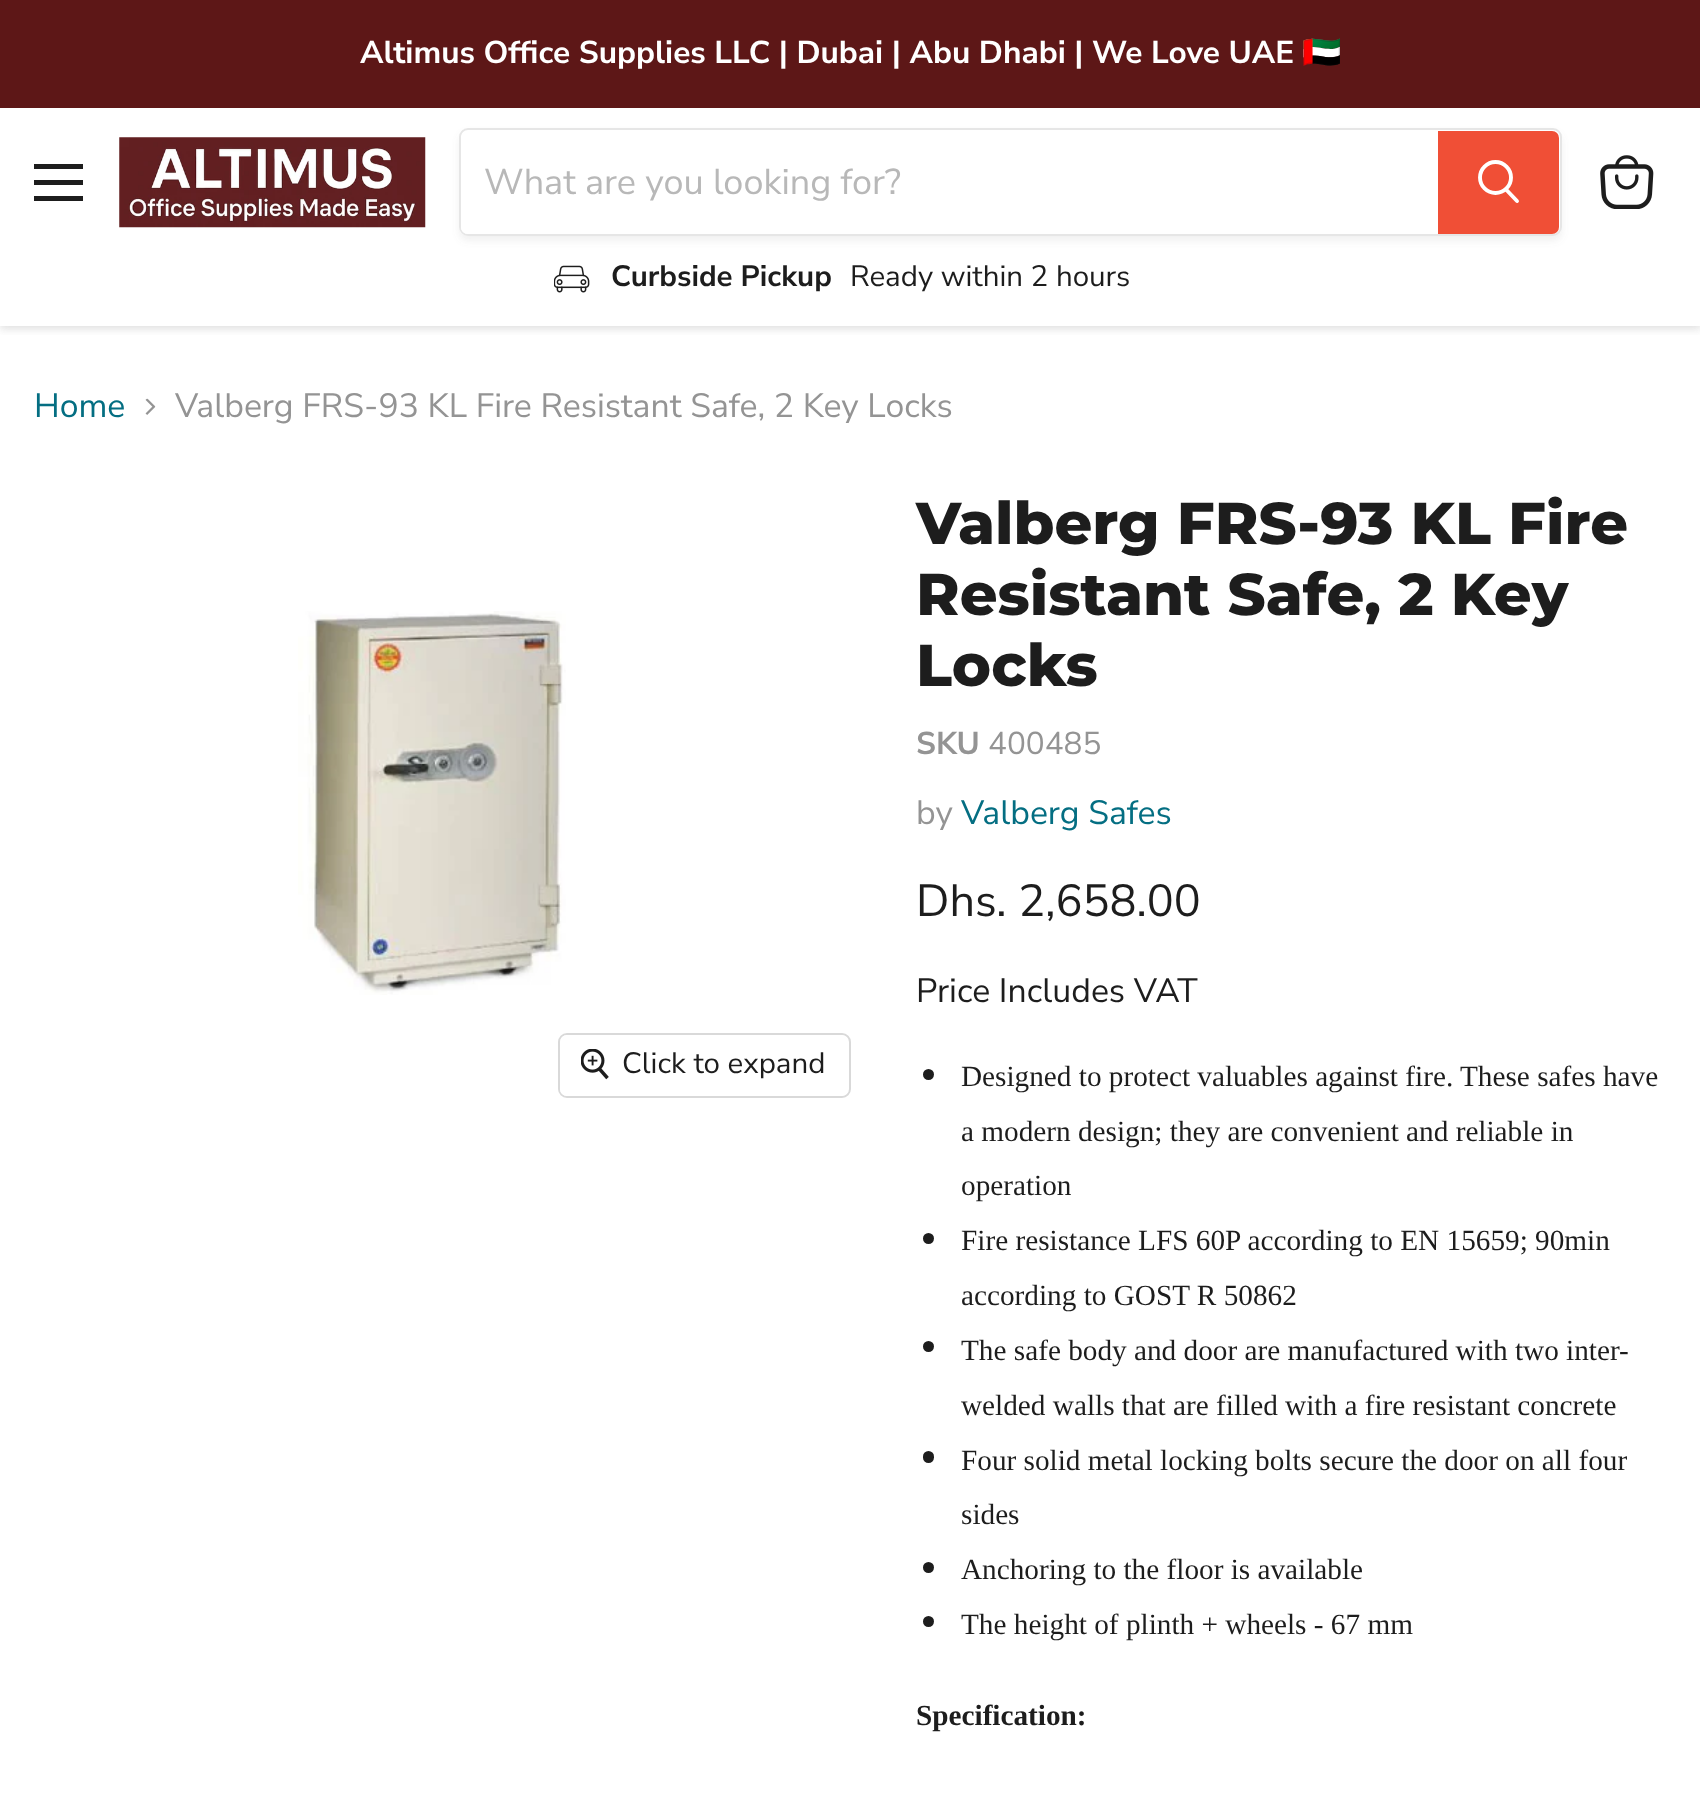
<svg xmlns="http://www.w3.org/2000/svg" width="1700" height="1796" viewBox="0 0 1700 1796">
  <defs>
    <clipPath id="clip1"><rect x="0" y="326" width="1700" height="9"/></clipPath>
    <filter id="blur1" x="-50%" y="-200%" width="200%" height="500%"><feGaussianBlur stdDeviation="4.5"/></filter>
    <clipPath id="clip2"><path d="M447 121H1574V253H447ZM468 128H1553C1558 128 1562 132 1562 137V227C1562 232 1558 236 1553 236H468C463 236 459 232 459 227V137C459 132 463 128 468 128Z" clip-rule="evenodd"/></clipPath>
    <filter id="blur2" x="-50%" y="-200%" width="200%" height="500%"><feGaussianBlur stdDeviation="3.5"/></filter>
  </defs>
  <rect width="100%" height="100%" fill="#ffffff"/>
  <g clip-path="url(#clip1)">
    <rect x="0" y="110" width="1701" height="219" fill="#808080" fill-opacity="0.25" filter="url(#blur1)"/>
  </g>
  <rect x="0" y="0" width="1700" height="108" fill="#5d1717"/>
  <text x="360" y="63" font-family="Nunito Sans" font-size="31.65" font-weight="bold" fill="#ffffff">Altimus Office Supplies LLC | Dubai | Abu Dhabi | We Love UAE</text>
  <text x="1302" y="63" font-family="Noto Color Emoji" font-size="31.65" font-weight="bold" fill="#ffffff">🇦🇪</text>
  <rect x="34" y="164" width="49" height="5" fill="#1d1d1d"/>
  <rect x="34" y="180" width="49" height="5" fill="#1d1d1d"/>
  <rect x="34" y="196" width="49" height="5" fill="#1d1d1d"/>
  <image x="119" y="137" width="307" height="91" href="img1.png"/>
  <g clip-path="url(#clip2)">
    <rect x="459" y="133" width="1103" height="108" rx="9" fill="#808080" fill-opacity="0.11" filter="url(#blur2)"/>
  </g>
  <rect x="460" y="129" width="1101" height="106" rx="8" fill="none" stroke="#808080" stroke-opacity="0.2" stroke-width="2"/>
  <path d="M468 131H1438V234H468C464 234 461 231 461 227V138C461 134 464 131 468 131Z" fill="#ffffff"/>
  <text x="484" y="194" font-family="Nunito Sans" font-size="36" fill="#b8b8b8">What are you looking for?</text>
  <path d="M1439 132H1552C1555.5 132 1558 134.5 1558 138V227C1558 230.5 1555.5 233 1552 233H1439Z" fill="#f04f36" stroke="#f04f36" stroke-width="2"/>
  <path d="M1517 201L1506.5 190" fill="none" stroke="#ffffff" stroke-width="3.9" stroke-linecap="round"/>
  <circle cx="1495.5" cy="177.5" r="15.5" fill="none" stroke="#ffffff" stroke-width="3.9"/>
  <image x="554" y="265" width="36" height="28" href="img2.png"/>
  <text x="611" y="286" font-family="Nunito Sans" font-size="29.5" font-weight="bold" fill="#1d1d1d">Curbside Pickup</text>
  <text x="850" y="286" font-family="Nunito Sans" font-size="29.5" fill="#1d1d1d">Ready within 2 hours</text>
  <image x="1600" y="155" width="54" height="54" href="img3.png"/>
  <text x="34" y="417" font-family="Nunito Sans" font-size="33.75" fill="#046e82">Home</text>
  <image x="145" y="398" width="11" height="17" href="img4.png"/>
  <text x="175" y="417" font-family="Nunito Sans" font-size="33.75" fill="#949494">Valberg FRS-93 KL Fire Resistant Safe, 2 Key Locks</text>
  <image x="298" y="611" width="268" height="384" href="img5.png"/>
  <rect x="559" y="1034" width="291" height="63" rx="8" fill="none" stroke="#d9d9d9" stroke-width="2"/>
  <rect x="560" y="1035" width="288" height="61" rx="7" fill="#ffffff" fill-opacity="0.9"/>
  <image x="581" y="1049" width="28" height="31" href="img6.png"/>
  <text x="622" y="1073" font-family="Nunito Sans" font-size="29.5" fill="#1d1d1d">Click to expand</text>
  <text x="916" y="544" font-family="Montserrat" font-size="59" font-weight="800" fill="#1d1d1d">Valberg FRS-93 KL Fire</text>
  <text x="916" y="615" font-family="Montserrat" font-size="59" font-weight="800" fill="#1d1d1d">Resistant Safe, 2 Key</text>
  <text x="916" y="686" font-family="Montserrat" font-size="59" font-weight="800" fill="#1d1d1d">Locks</text>
  <text x="916" y="754" font-family="Nunito Sans" font-size="31.5" font-weight="bold" fill="#949494">SKU</text>
  <text x="988" y="754" font-family="Nunito Sans" font-size="31.5" fill="#949494">400485</text>
  <text x="916" y="824" font-family="Nunito Sans" font-size="33.75" fill="#949494">by</text>
  <text x="961" y="824" font-family="Nunito Sans" font-size="33.75" fill="#046e82">Valberg Safes</text>
  <text x="916" y="916" font-family="Nunito Sans" font-size="45" fill="#1d1d1d">Dhs. 2,658.00</text>
  <text x="916" y="1002" font-family="Nunito Sans" font-size="33.75" fill="#1d1d1d">Price Includes VAT</text>
  <circle cx="928.5" cy="1074.5" r="5.5" fill="#1d1d1d"/>
  <text x="961" y="1086" font-family="Liberation Serif" font-size="29.25" fill="#1d1d1d">Designed to protect valuables against fire. These safes have</text>
  <text x="961" y="1141" font-family="Liberation Serif" font-size="29.25" fill="#1d1d1d">a modern design; they are convenient and reliable in</text>
  <text x="961" y="1195" font-family="Liberation Serif" font-size="29.25" fill="#1d1d1d">operation</text>
  <circle cx="928.5" cy="1238.5" r="5.5" fill="#1d1d1d"/>
  <text x="961" y="1250" font-family="Liberation Serif" font-size="29.25" fill="#1d1d1d">Fire resistance LFS 60P according to EN 15659; 90min</text>
  <text x="961" y="1305" font-family="Liberation Serif" font-size="29.25" fill="#1d1d1d">according to GOST R 50862</text>
  <circle cx="928.5" cy="1346.5" r="5.5" fill="#1d1d1d"/>
  <text x="961" y="1360" font-family="Liberation Serif" font-size="29.25" fill="#1d1d1d">The safe body and door are manufactured with two inter-</text>
  <text x="961" y="1415" font-family="Liberation Serif" font-size="29.25" fill="#1d1d1d">welded walls that are filled with a fire resistant concrete</text>
  <rect x="923" y="1451" width="11" height="12" rx="5.5" fill="#1d1d1d"/>
  <text x="961" y="1470" font-family="Liberation Serif" font-size="29.25" fill="#1d1d1d">Four solid metal locking bolts secure thе door on all four</text>
  <text x="961" y="1524" font-family="Liberation Serif" font-size="29.25" fill="#1d1d1d">sides</text>
  <circle cx="928.5" cy="1567.5" r="5.5" fill="#1d1d1d"/>
  <text x="961" y="1579" font-family="Liberation Serif" font-size="29.25" fill="#1d1d1d">Anchoring to the floor is available</text>
  <circle cx="928.5" cy="1621.5" r="5.5" fill="#1d1d1d"/>
  <text x="961" y="1634" font-family="Liberation Serif" font-size="29.25" fill="#1d1d1d">The height of plinth + wheels - 67 mm</text>
  <text x="916" y="1725" font-family="Liberation Serif" font-size="29.25" font-weight="bold" fill="#1d1d1d">Specification:</text>
</svg>
